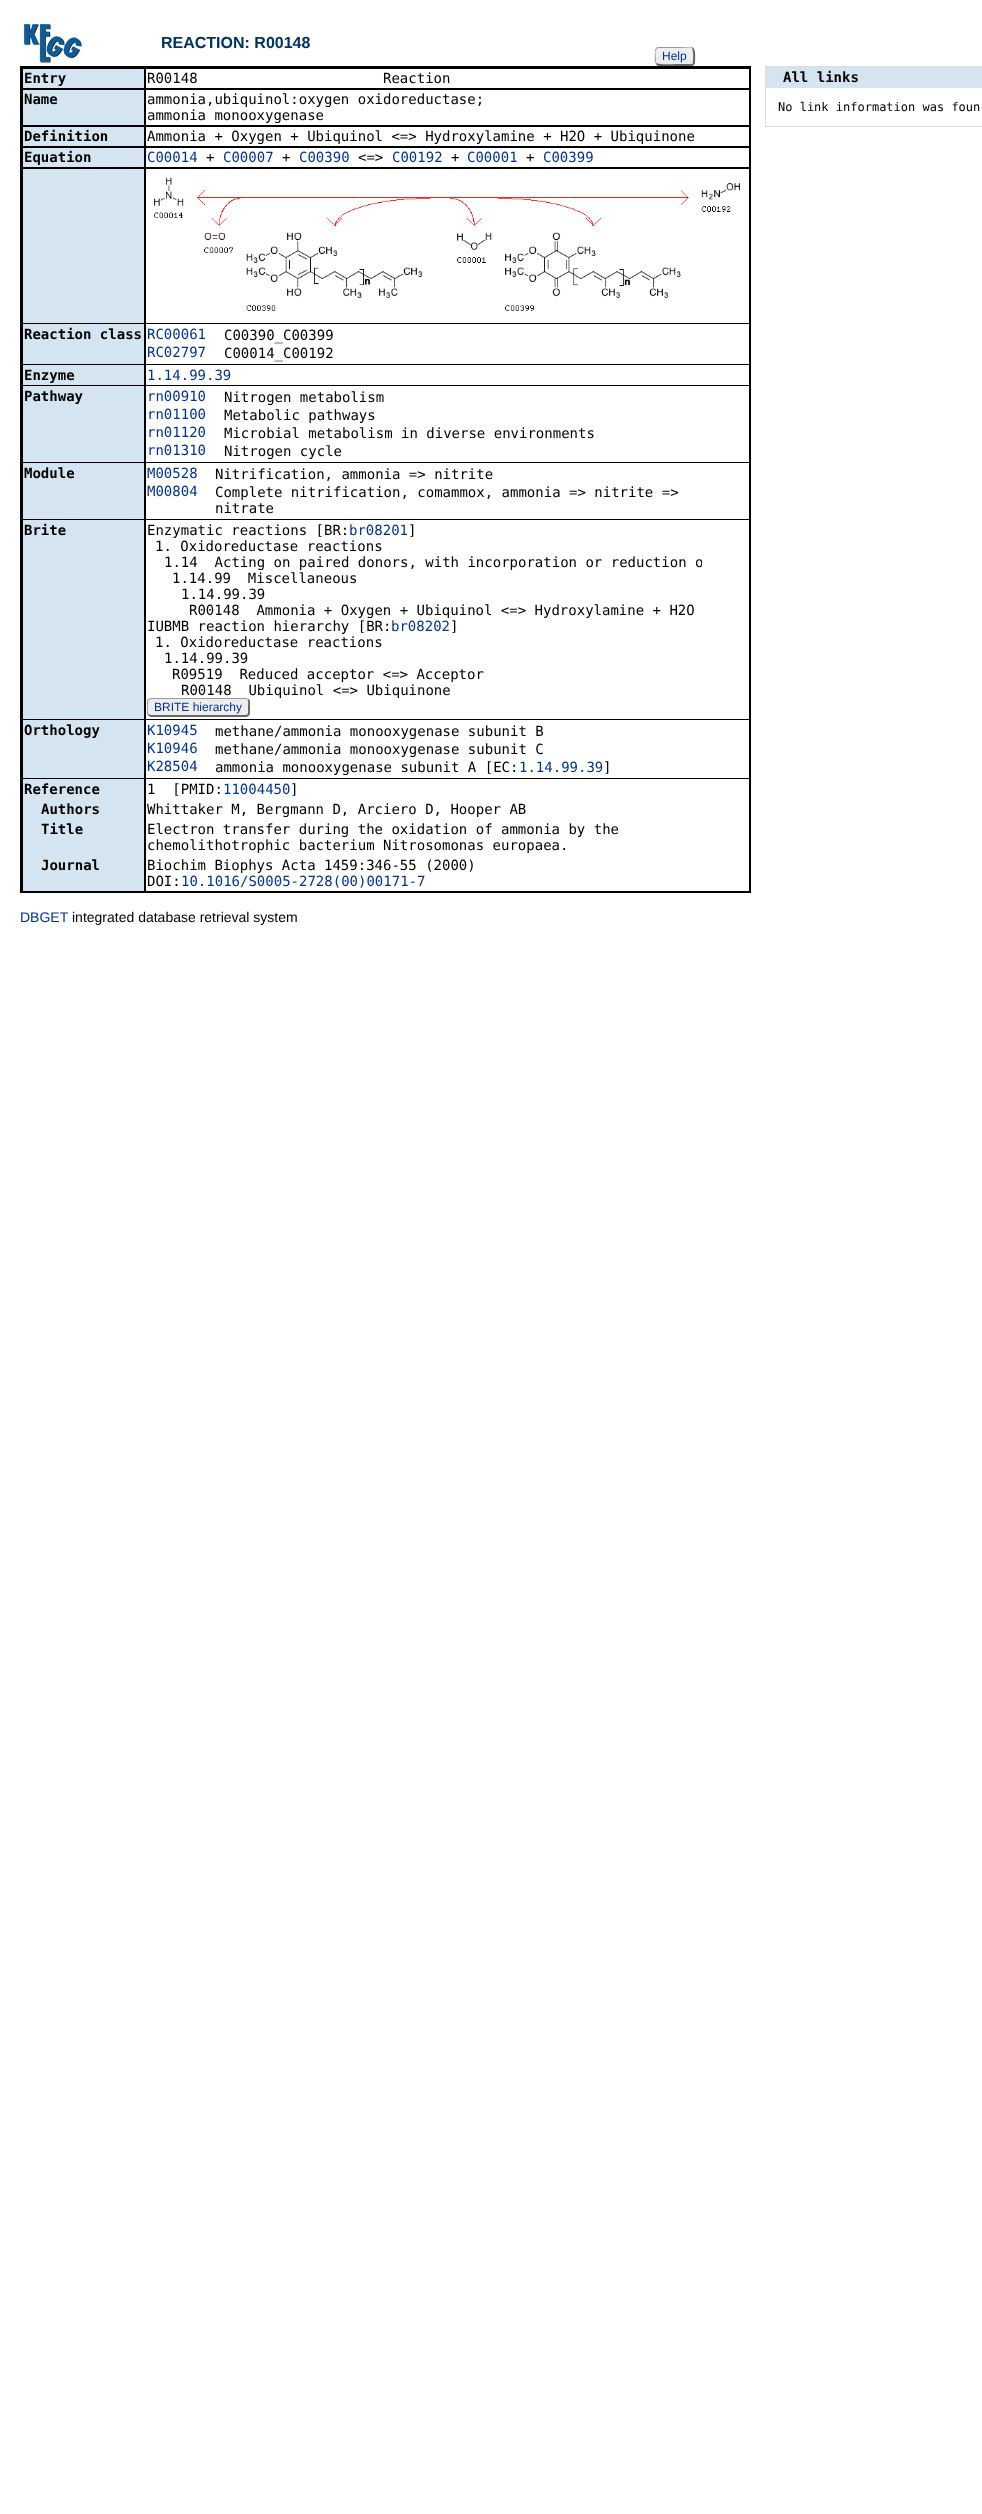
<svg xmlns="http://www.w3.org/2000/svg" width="982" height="2514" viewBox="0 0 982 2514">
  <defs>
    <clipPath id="clip1"><rect x="147" y="522" width="555" height="176"/></clipPath>
  </defs>
  <rect width="100%" height="100%" fill="#ffffff"/>
  <image x="24" y="24" width="58" height="39" href="img1.png"/>
  <text x="161" y="48" font-family="Liberation Sans" font-size="16" font-weight="bold" fill="#003366">REACTION: R00148</text>
  <path d="M659 48H691C692 48 693 49.5 693 51V62C693 63 692 64 691 64H659C657.5 64 656 63 656 62V51C656 49.5 657.5 48 659 48Z" fill="#eeeeee"/>
  <path d="M659 47C657.5 47 656.5 47.5 656 48L657 49L658 48H680L690 47.5C690.5 47.5 691.5 48 692 48.5L693.5 48L692 47Z" fill="#999999"/>
  <path d="M695 63L694 65L692.5 63.5C693.5 61.5 693.5 50 692 48.5L693.5 48C696 50.5 695 59.5 695 63Z" fill="#666666"/>
  <path d="M658 66C657 65.5 656.5 65 656 64L656.5 63C659 65 673 64 677 64H687.5C688.5 64 691.5 64.5 692.5 63.5L694 65C693.5 65.5 692.5 66 691 66Z" fill="#666666"/>
  <path d="M655 50L656 48L657 49C656 49.5 656 50.5 655.5 51.5L656 62L656.5 63L656 64C654 61 655 54 655 50Z" fill="#999999"/>
  <text x="662" y="60" font-family="Liberation Sans" font-size="12" fill="#003399">Help</text>
  <rect x="20" y="66" width="731" height="827" fill="#000000"/>
  <rect x="23" y="69" width="121" height="19" fill="#d4e4f0"/>
  <text x="24" y="83" font-family="DejaVu Sans Mono" font-size="14" font-weight="bold" fill="#000000">Entry</text>
  <rect x="146" y="69" width="603" height="19" fill="#ffffff"/>
  <text x="147" y="83" font-family="DejaVu Sans Mono" font-size="14" fill="#000000" xml:space="preserve">R00148                      Reaction</text>
  <rect x="23" y="90" width="121" height="35" fill="#d4e4f0"/>
  <text x="24" y="104" font-family="DejaVu Sans Mono" font-size="14" font-weight="bold" fill="#000000">Name</text>
  <rect x="146" y="90" width="603" height="35" fill="#ffffff"/>
  <text x="147" y="104" font-family="DejaVu Sans Mono" font-size="14" fill="#000000">ammonia,ubiquinol:oxygen oxidoreductase;</text>
  <text x="147" y="120" font-family="DejaVu Sans Mono" font-size="14" fill="#000000">ammonia monooxygenase</text>
  <rect x="23" y="127" width="121" height="19" fill="#d4e4f0"/>
  <text x="24" y="141" font-family="DejaVu Sans Mono" font-size="14" font-weight="bold" fill="#000000">Definition</text>
  <rect x="146" y="127" width="603" height="19" fill="#ffffff"/>
  <text x="147" y="141" font-family="DejaVu Sans Mono" font-size="14" fill="#000000">Ammonia + Oxygen + Ubiquinol &lt;=&gt; Hydroxylamine + H2O + Ubiquinone</text>
  <rect x="23" y="148" width="121" height="19" fill="#d4e4f0"/>
  <text x="24" y="162" font-family="DejaVu Sans Mono" font-size="14" font-weight="bold" fill="#000000">Equation</text>
  <rect x="146" y="148" width="603" height="19" fill="#ffffff"/>
  <text x="147" y="162" font-family="DejaVu Sans Mono" font-size="14" fill="#003399">C00014</text>
  <text x="206" y="162" font-family="DejaVu Sans Mono" font-size="14" fill="#000000">+</text>
  <text x="223" y="162" font-family="DejaVu Sans Mono" font-size="14" fill="#003399">C00007</text>
  <text x="282" y="162" font-family="DejaVu Sans Mono" font-size="14" fill="#000000">+</text>
  <text x="299" y="162" font-family="DejaVu Sans Mono" font-size="14" fill="#003399">C00390</text>
  <text x="358" y="162" font-family="DejaVu Sans Mono" font-size="14" fill="#000000">&lt;=&gt;</text>
  <text x="392" y="162" font-family="DejaVu Sans Mono" font-size="14" fill="#003399">C00192</text>
  <text x="451" y="162" font-family="DejaVu Sans Mono" font-size="14" fill="#000000">+</text>
  <text x="467" y="162" font-family="DejaVu Sans Mono" font-size="14" fill="#003399">C00001</text>
  <text x="526" y="162" font-family="DejaVu Sans Mono" font-size="14" fill="#000000">+</text>
  <text x="543" y="162" font-family="DejaVu Sans Mono" font-size="14" fill="#003399">C00399</text>
  <rect x="23" y="169" width="121" height="154" fill="#d4e4f0"/>
  <rect x="146" y="169" width="603" height="154" fill="#ffffff"/>
  <image x="154" y="177" width="586" height="134" href="img2.png"/>
  <rect x="23" y="324" width="121" height="40" fill="#d4e4f0"/>
  <text x="24" y="339" font-family="DejaVu Sans Mono" font-size="14" font-weight="bold" fill="#000000">Reaction class</text>
  <rect x="146" y="324" width="603" height="40" fill="#ffffff"/>
  <text x="147" y="339" font-family="DejaVu Sans Mono" font-size="14" fill="#003399">RC00061</text>
  <text x="224" y="340" font-family="DejaVu Sans Mono" font-size="14" fill="#000000">C00390_C00399</text>
  <text x="147" y="357" font-family="DejaVu Sans Mono" font-size="14" fill="#003399">RC02797</text>
  <text x="224" y="358" font-family="DejaVu Sans Mono" font-size="14" fill="#000000">C00014_C00192</text>
  <rect x="23" y="365" width="121" height="20" fill="#d4e4f0"/>
  <text x="24" y="380" font-family="DejaVu Sans Mono" font-size="14" font-weight="bold" fill="#000000">Enzyme</text>
  <rect x="146" y="365" width="603" height="20" fill="#ffffff"/>
  <text x="147" y="380" font-family="DejaVu Sans Mono" font-size="14" fill="#003399">1.14.99.39</text>
  <rect x="23" y="386" width="121" height="76" fill="#d4e4f0"/>
  <text x="24" y="401" font-family="DejaVu Sans Mono" font-size="14" font-weight="bold" fill="#000000">Pathway</text>
  <rect x="146" y="386" width="603" height="76" fill="#ffffff"/>
  <text x="147" y="401" font-family="DejaVu Sans Mono" font-size="14" fill="#003399">rn00910</text>
  <text x="224" y="402" font-family="DejaVu Sans Mono" font-size="14" fill="#000000">Nitrogen metabolism</text>
  <text x="147" y="419" font-family="DejaVu Sans Mono" font-size="14" fill="#003399">rn01100</text>
  <text x="224" y="420" font-family="DejaVu Sans Mono" font-size="14" fill="#000000">Metabolic pathways</text>
  <text x="147" y="437" font-family="DejaVu Sans Mono" font-size="14" fill="#003399">rn01120</text>
  <text x="224" y="438" font-family="DejaVu Sans Mono" font-size="14" fill="#000000">Microbial metabolism in diverse environments</text>
  <text x="147" y="455" font-family="DejaVu Sans Mono" font-size="14" fill="#003399">rn01310</text>
  <text x="224" y="456" font-family="DejaVu Sans Mono" font-size="14" fill="#000000">Nitrogen cycle</text>
  <rect x="23" y="463" width="121" height="56" fill="#d4e4f0"/>
  <text x="24" y="478" font-family="DejaVu Sans Mono" font-size="14" font-weight="bold" fill="#000000">Module</text>
  <rect x="146" y="463" width="603" height="56" fill="#ffffff"/>
  <text x="147" y="478" font-family="DejaVu Sans Mono" font-size="14" fill="#003399">M00528</text>
  <text x="215" y="479" font-family="DejaVu Sans Mono" font-size="14" fill="#000000">Nitrification, ammonia =&gt; nitrite</text>
  <text x="147" y="496" font-family="DejaVu Sans Mono" font-size="14" fill="#003399">M00804</text>
  <text x="215" y="497" font-family="DejaVu Sans Mono" font-size="14" fill="#000000">Complete nitrification, comammox, ammonia =&gt; nitrite =&gt;</text>
  <text x="215" y="513" font-family="DejaVu Sans Mono" font-size="14" fill="#000000">nitrate</text>
  <rect x="23" y="520" width="121" height="199" fill="#d4e4f0"/>
  <text x="24" y="535" font-family="DejaVu Sans Mono" font-size="14" font-weight="bold" fill="#000000">Brite</text>
  <rect x="146" y="520" width="603" height="199" fill="#ffffff"/>
  <text x="147" y="535" font-family="DejaVu Sans Mono" font-size="14" fill="#000000">Enzymatic reactions [BR:</text>
  <text x="349" y="535" font-family="DejaVu Sans Mono" font-size="14" fill="#003399">br08201</text>
  <text x="408" y="535" font-family="DejaVu Sans Mono" font-size="14" fill="#000000">]</text>
  <text x="155" y="551" font-family="DejaVu Sans Mono" font-size="14" fill="#000000">1. Oxidoreductase reactions</text>
  <g clip-path="url(#clip1)">
    <text x="164" y="567" font-family="DejaVu Sans Mono" font-size="14" fill="#000000" xml:space="preserve">1.14  Acting on paired donors, with incorporation or reduction o</text>
  </g>
  <text x="172" y="583" font-family="DejaVu Sans Mono" font-size="14" fill="#000000" xml:space="preserve">1.14.99  Miscellaneous</text>
  <text x="181" y="599" font-family="DejaVu Sans Mono" font-size="14" fill="#000000">1.14.99.39</text>
  <text x="189" y="615" font-family="DejaVu Sans Mono" font-size="14" fill="#000000" xml:space="preserve">R00148  Ammonia + Oxygen + Ubiquinol &lt;=&gt; Hydroxylamine + H2O</text>
  <text x="147" y="631" font-family="DejaVu Sans Mono" font-size="14" fill="#000000">IUBMB reaction hierarchy [BR:</text>
  <text x="391" y="631" font-family="DejaVu Sans Mono" font-size="14" fill="#003399">br08202</text>
  <text x="450" y="631" font-family="DejaVu Sans Mono" font-size="14" fill="#000000">]</text>
  <text x="155" y="647" font-family="DejaVu Sans Mono" font-size="14" fill="#000000">1. Oxidoreductase reactions</text>
  <text x="164" y="663" font-family="DejaVu Sans Mono" font-size="14" fill="#000000">1.14.99.39</text>
  <text x="172" y="679" font-family="DejaVu Sans Mono" font-size="14" fill="#000000" xml:space="preserve">R09519  Reduced acceptor &lt;=&gt; Acceptor</text>
  <text x="181" y="695" font-family="DejaVu Sans Mono" font-size="14" fill="#000000" xml:space="preserve">R00148  Ubiquinol &lt;=&gt; Ubiquinone</text>
  <path d="M151 699H246C247 699 248 700 248 702V713C248 714 247 715 246 715H151C149 715 148 714 148 713V702C148 700 149 699 151 699Z" fill="#eeeeee"/>
  <path d="M151 698L148 699L149 700L151 699H167C175 699 246 699 247 699H248L246 698Z" fill="#999999"/>
  <path d="M250 713V702C250 701 249.5 699.5 248.5 699L247 699.5C249 701 248 705.5 248 707.5C248 709 248.5 713 247.5 714.5L249 716C249.5 715 250 714 250 713Z" fill="#666666"/>
  <path d="M151 717H246L249 716L247 714L246 715H151L148 714V715C149 716 150 717 151 717Z" fill="#666666"/>
  <path d="M147 702V713C147 714 147.5 714.5 148 715.5L148.5 714C147.5 713 147.5 701 149 700L148 699C147.5 700 147 701 147 702Z" fill="#999999"/>
  <text x="154" y="711" font-family="Liberation Sans" font-size="12" fill="#003399">BRITE hierarchy</text>
  <rect x="23" y="720" width="121" height="58" fill="#d4e4f0"/>
  <text x="24" y="735" font-family="DejaVu Sans Mono" font-size="14" font-weight="bold" fill="#000000">Orthology</text>
  <rect x="146" y="720" width="603" height="58" fill="#ffffff"/>
  <text x="147" y="735" font-family="DejaVu Sans Mono" font-size="14" fill="#003399">K10945</text>
  <text x="215" y="736" font-family="DejaVu Sans Mono" font-size="14" fill="#000000">methane/ammonia monooxygenase subunit B</text>
  <text x="147" y="753" font-family="DejaVu Sans Mono" font-size="14" fill="#003399">K10946</text>
  <text x="215" y="754" font-family="DejaVu Sans Mono" font-size="14" fill="#000000">methane/ammonia monooxygenase subunit C</text>
  <text x="147" y="771" font-family="DejaVu Sans Mono" font-size="14" fill="#003399">K28504</text>
  <text x="215" y="772" font-family="DejaVu Sans Mono" font-size="14" fill="#000000">ammonia monooxygenase subunit A [EC:</text>
  <text x="519" y="772" font-family="DejaVu Sans Mono" font-size="14" fill="#003399">1.14.99.39</text>
  <text x="603" y="772" font-family="DejaVu Sans Mono" font-size="14" fill="#000000">]</text>
  <rect x="23" y="779" width="121" height="112" fill="#d4e4f0"/>
  <text x="24" y="794" font-family="DejaVu Sans Mono" font-size="14" font-weight="bold" fill="#000000">Reference</text>
  <rect x="146" y="779" width="603" height="112" fill="#ffffff"/>
  <text x="147" y="794" font-family="DejaVu Sans Mono" font-size="14" fill="#000000" xml:space="preserve">1  [PMID:</text>
  <text x="223" y="794" font-family="DejaVu Sans Mono" font-size="14" fill="#003399">11004450</text>
  <text x="290" y="794" font-family="DejaVu Sans Mono" font-size="14" fill="#000000">]</text>
  <text x="41" y="814" font-family="DejaVu Sans Mono" font-size="14" font-weight="bold" fill="#000000">Authors</text>
  <text x="147" y="814" font-family="DejaVu Sans Mono" font-size="14" fill="#000000">Whittaker M, Bergmann D, Arciero D, Hooper AB</text>
  <text x="41" y="834" font-family="DejaVu Sans Mono" font-size="14" font-weight="bold" fill="#000000">Title</text>
  <text x="147" y="834" font-family="DejaVu Sans Mono" font-size="14" fill="#000000">Electron transfer during the oxidation of ammonia by the</text>
  <text x="147" y="850" font-family="DejaVu Sans Mono" font-size="14" fill="#000000">chemolithotrophic bacterium Nitrosomonas europaea.</text>
  <text x="41" y="870" font-family="DejaVu Sans Mono" font-size="14" font-weight="bold" fill="#000000">Journal</text>
  <text x="147" y="870" font-family="DejaVu Sans Mono" font-size="14" fill="#000000">Biochim Biophys Acta 1459:346-55 (2000)</text>
  <text x="147" y="886" font-family="DejaVu Sans Mono" font-size="14" fill="#000000">DOI:</text>
  <text x="181" y="886" font-family="DejaVu Sans Mono" font-size="14" fill="#003399">10.1016/S0005-2728(00)00171-7</text>
  <rect x="765.5" y="66.5" width="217" height="60" fill="none" stroke="#dddddd"/>
  <rect x="766" y="67" width="216" height="21" fill="#d4e4f0"/>
  <text x="783" y="82" font-family="DejaVu Sans Mono" font-size="14" font-weight="bold" fill="#000000">All links</text>
  <text x="778" y="111" font-family="DejaVu Sans Mono" font-size="12" fill="#000000">No link information was foun</text>
  <text x="20" y="922" font-family="Liberation Sans" font-size="14" fill="#003399">DBGET</text>
  <text x="72" y="922" font-family="Liberation Sans" font-size="14" fill="#000000">integrated database retrieval system</text>
</svg>
